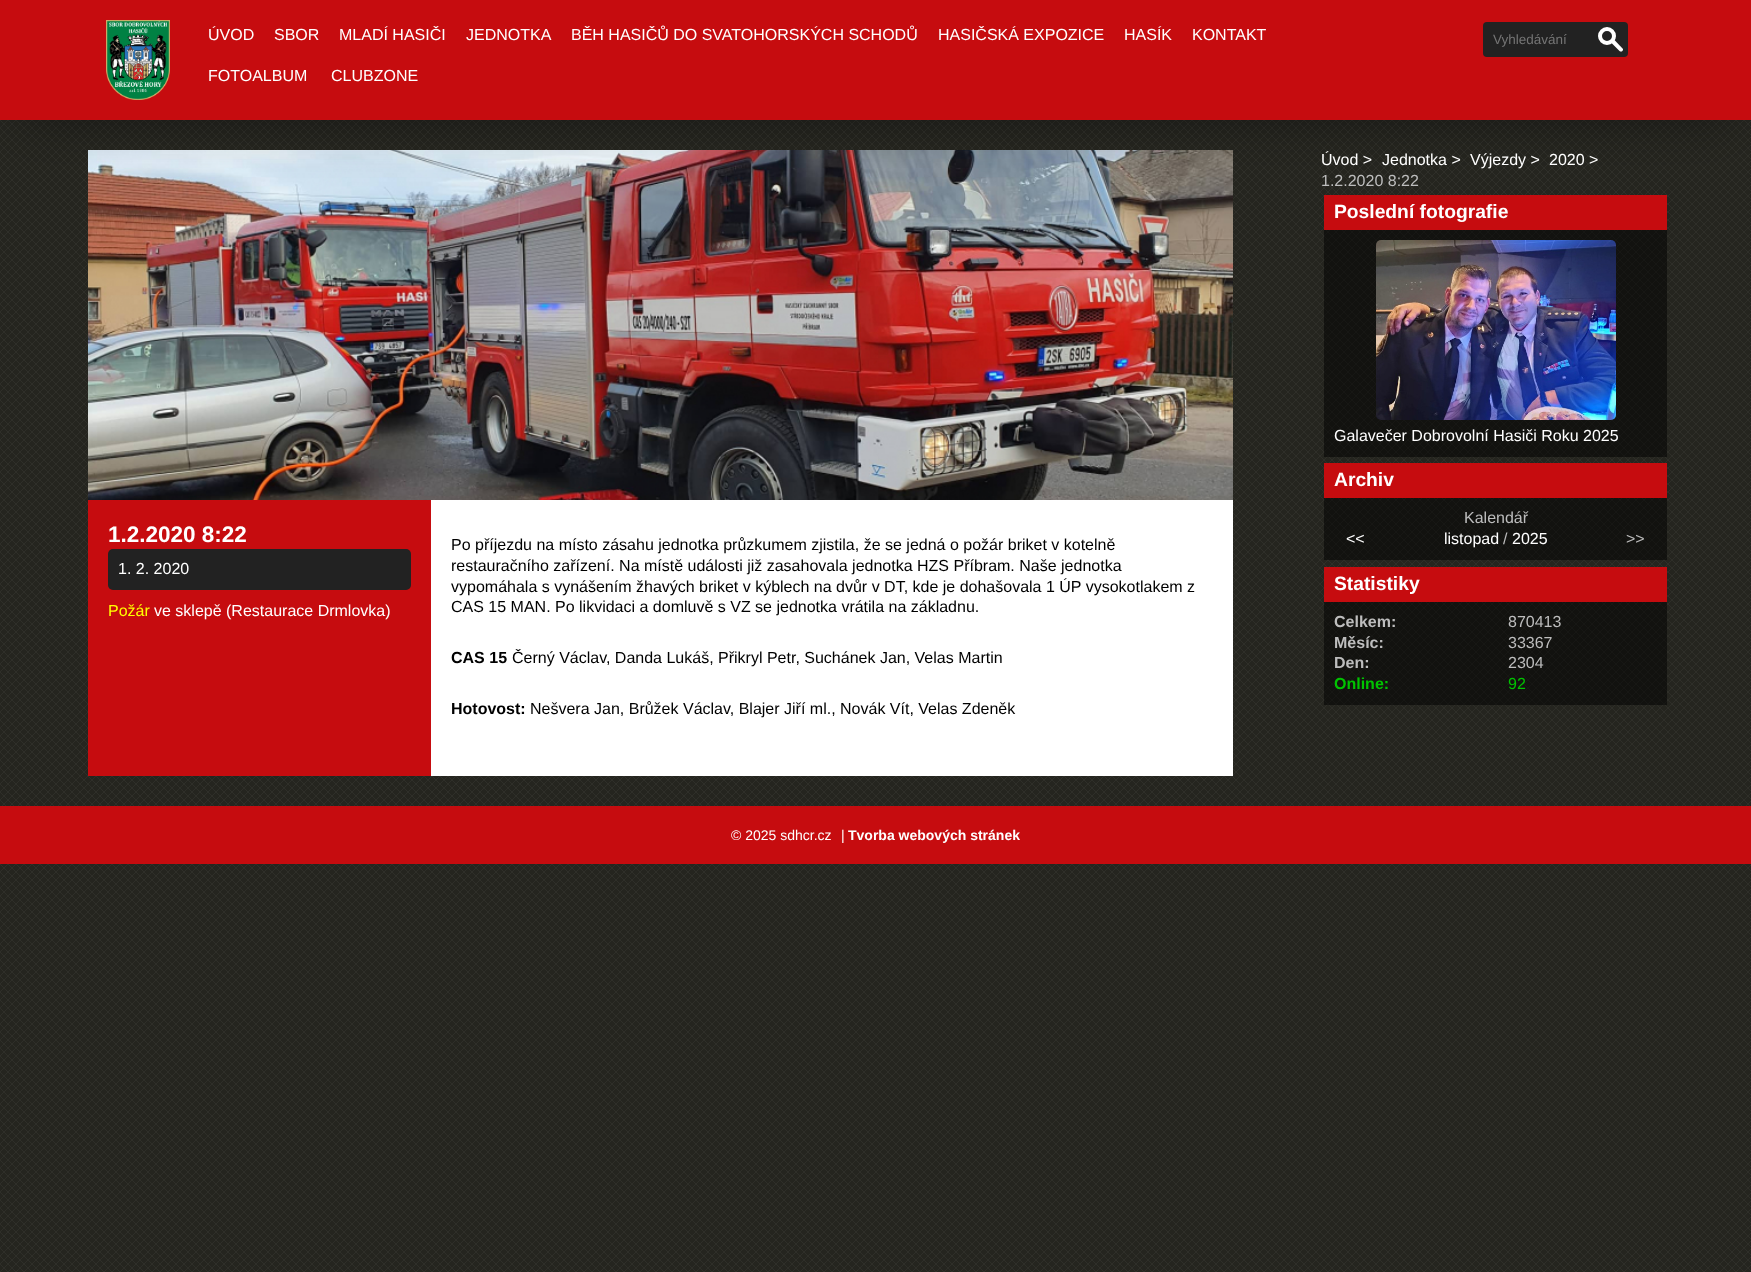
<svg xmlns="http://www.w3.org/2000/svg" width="1751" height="1272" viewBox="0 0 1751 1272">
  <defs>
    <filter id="blur1" x="-50%" y="-200%" width="200%" height="500%"><feGaussianBlur stdDeviation="27"/></filter>
  </defs>
  <rect width="100%" height="100%" fill="#25251f"/>
  <image x="0" y="120" width="1751" height="1152" href="img1.png"/>
  <image x="88" y="150" width="1145" height="350" href="img3.png"/>
  <rect x="1324" y="195" width="343" height="35" fill="#c60c0f"/>
  <rect x="18" y="33" width="1715" height="84" fill="#000000" fill-opacity="0.45" filter="url(#blur1)"/>
  <rect x="0" y="0" width="1751" height="120" fill="#c60c0f"/>
  <image x="106" y="20" width="64" height="80" href="img2.png"/>
  <text x="208" y="40" font-family="Liberation Sans" font-size="16" fill="#ffffff">ÚVOD</text>
  <text x="274" y="40" font-family="Liberation Sans" font-size="16" fill="#ffffff">SBOR</text>
  <text x="339" y="40" font-family="Liberation Sans" font-size="16" fill="#ffffff">MLADÍ HASIČI</text>
  <text x="466" y="40" font-family="Liberation Sans" font-size="16" fill="#ffffff">JEDNOTKA</text>
  <text x="571" y="40" font-family="Liberation Sans" font-size="16" fill="#ffffff">BĚH HASIČŮ DO SVATOHORSKÝCH SCHODŮ</text>
  <text x="938" y="40" font-family="Liberation Sans" font-size="16" fill="#ffffff">HASIČSKÁ EXPOZICE</text>
  <text x="1124" y="40" font-family="Liberation Sans" font-size="16" fill="#ffffff">HASÍK</text>
  <text x="1192" y="40" font-family="Liberation Sans" font-size="16" fill="#ffffff">KONTAKT</text>
  <text x="208" y="81" font-family="Liberation Sans" font-size="16" fill="#ffffff">FOTOALBUM</text>
  <text x="331" y="81" font-family="Liberation Sans" font-size="16" fill="#ffffff">CLUBZONE</text>
  <rect x="1483" y="22" width="145" height="35" rx="4" fill="#222222"/>
  <text x="1493" y="44" font-family="Liberation Sans" font-size="13.5" fill="#757575">Vyhledávání</text>
  <circle cx="1607" cy="36" r="7" fill="none" stroke="#ffffff" stroke-width="4"/>
  <path d="M1611 42.5L1614 39.5L1623 49C1623.5 51 1621 52.5 1619.5 51Z" fill="#ffffff"/>
  <rect x="88" y="500" width="343" height="276" fill="#c60c0f"/>
  <text x="108" y="542" font-family="Liberation Sans" font-size="22.5" font-weight="bold" fill="#ffffff">1.2.2020 8:22</text>
  <rect x="108" y="549" width="303" height="41" rx="5" fill="#222222"/>
  <text x="118" y="574" font-family="Liberation Sans" font-size="16" fill="#ffffff">1. 2. 2020</text>
  <text x="108" y="616" font-family="Liberation Sans" font-size="16" fill="#ffff00">Požár</text>
  <text x="154" y="616" font-family="Liberation Sans" font-size="16" fill="#ffffff">ve sklepě (Restaurace Drmlovka)</text>
  <rect x="431" y="500" width="802" height="276" fill="#ffffff"/>
  <text x="451" y="550" font-family="Liberation Sans" font-size="16" fill="#000000">Po příjezdu na místo zásahu jednotka průzkumem zjistila, že se jedná o požár briket v kotelně</text>
  <text x="451" y="571" font-family="Liberation Sans" font-size="16" fill="#000000">restauračního zařízení. Na místě události již zasahovala jednotka HZS Příbram. Naše jednotka</text>
  <text x="451" y="592" font-family="Liberation Sans" font-size="16" fill="#000000">vypomáhala s vynášením žhavých briket v kýblech na dvůr v DT, kde je dohašovala 1 ÚP vysokotlakem z</text>
  <text x="451" y="612" font-family="Liberation Sans" font-size="16" fill="#000000">CAS 15 MAN. Po likvidaci a domluvě s VZ se jednotka vrátila na základnu.</text>
  <text x="451" y="663" font-family="Liberation Sans" font-size="16" font-weight="bold" fill="#000000">CAS 15</text>
  <text x="512" y="663" font-family="Liberation Sans" font-size="16" fill="#000000">Černý Václav, Danda Lukáš, Přikryl Petr, Suchánek Jan, Velas Martin</text>
  <text x="451" y="714" font-family="Liberation Sans" font-size="16" font-weight="bold" fill="#000000">Hotovost:</text>
  <text x="530" y="714" font-family="Liberation Sans" font-size="16" fill="#000000">Nešvera Jan, Brůžek Václav, Blajer Jiří ml., Novák Vít, Velas Zdeněk</text>
  <text x="1321" y="165" font-family="Liberation Sans" font-size="16" fill="#ffffff">Úvod &gt;</text>
  <text x="1382" y="165" font-family="Liberation Sans" font-size="16" fill="#ffffff">Jednotka &gt;</text>
  <text x="1470" y="165" font-family="Liberation Sans" font-size="16" fill="#ffffff">Výjezdy &gt;</text>
  <text x="1549" y="165" font-family="Liberation Sans" font-size="16" fill="#ffffff">2020 &gt;</text>
  <text x="1321" y="186" font-family="Liberation Sans" font-size="16" fill="#bdbdbd">1.2.2020 8:22</text>
  <text x="1334" y="218" font-family="Liberation Sans" font-size="19.25" font-weight="bold" fill="#ffffff">Poslední fotografie</text>
  <rect x="1324" y="230" width="343" height="227" fill="#000000" fill-opacity="0.5"/>
  <image x="1376" y="240" width="240" height="180" href="img4.png"/>
  <text x="1334" y="441" font-family="Liberation Sans" font-size="16" fill="#ffffff">Galavečer Dobrovolní Hasiči Roku 2025</text>
  <rect x="1324" y="463" width="343" height="35" fill="#c60c0f"/>
  <text x="1334" y="486" font-family="Liberation Sans" font-size="19.25" font-weight="bold" fill="#ffffff">Archiv</text>
  <rect x="1324" y="498" width="343" height="62" fill="#000000" fill-opacity="0.5"/>
  <text x="1464" y="523" font-family="Liberation Sans" font-size="16" fill="#bdbdbd">Kalendář</text>
  <text x="1346" y="544" font-family="Liberation Sans" font-size="16" fill="#ffffff">&lt;&lt;</text>
  <text x="1444" y="544" font-family="Liberation Sans" font-size="16" fill="#ffffff">listopad</text>
  <text x="1503" y="544" font-family="Liberation Sans" font-size="16" fill="#bdbdbd">/</text>
  <text x="1512" y="544" font-family="Liberation Sans" font-size="16" fill="#ffffff">2025</text>
  <text x="1626" y="544" font-family="Liberation Sans" font-size="16" fill="#bdbdbd">&gt;&gt;</text>
  <rect x="1324" y="567" width="343" height="35" fill="#c60c0f"/>
  <text x="1334" y="590" font-family="Liberation Sans" font-size="19.25" font-weight="bold" fill="#ffffff">Statistiky</text>
  <rect x="1324" y="602" width="343" height="103" fill="#000000" fill-opacity="0.5"/>
  <text x="1334" y="627" font-family="Liberation Sans" font-size="16" font-weight="bold" fill="#bdbdbd">Celkem:</text>
  <text x="1508" y="627" font-family="Liberation Sans" font-size="16" fill="#bdbdbd">870413</text>
  <text x="1334" y="648" font-family="Liberation Sans" font-size="16" font-weight="bold" fill="#bdbdbd">Měsíc:</text>
  <text x="1508" y="648" font-family="Liberation Sans" font-size="16" fill="#bdbdbd">33367</text>
  <text x="1334" y="668" font-family="Liberation Sans" font-size="16" font-weight="bold" fill="#bdbdbd">Den:</text>
  <text x="1508" y="668" font-family="Liberation Sans" font-size="16" fill="#bdbdbd">2304</text>
  <text x="1334" y="689" font-family="Liberation Sans" font-size="16" font-weight="bold" fill="#00c300">Online:</text>
  <text x="1508" y="689" font-family="Liberation Sans" font-size="16" fill="#00c300">92</text>
  <rect x="0" y="806" width="1751" height="58" fill="#c60c0f"/>
  <text x="731" y="840" font-family="Liberation Sans" font-size="14" fill="#ffffff">© 2025 sdhcr.cz</text>
  <text x="841" y="840" font-family="Liberation Sans" font-size="14" fill="#ffffff">|</text>
  <text x="848" y="840" font-family="Liberation Sans" font-size="14" font-weight="bold" fill="#ffffff">Tvorba webových stránek</text>
</svg>
